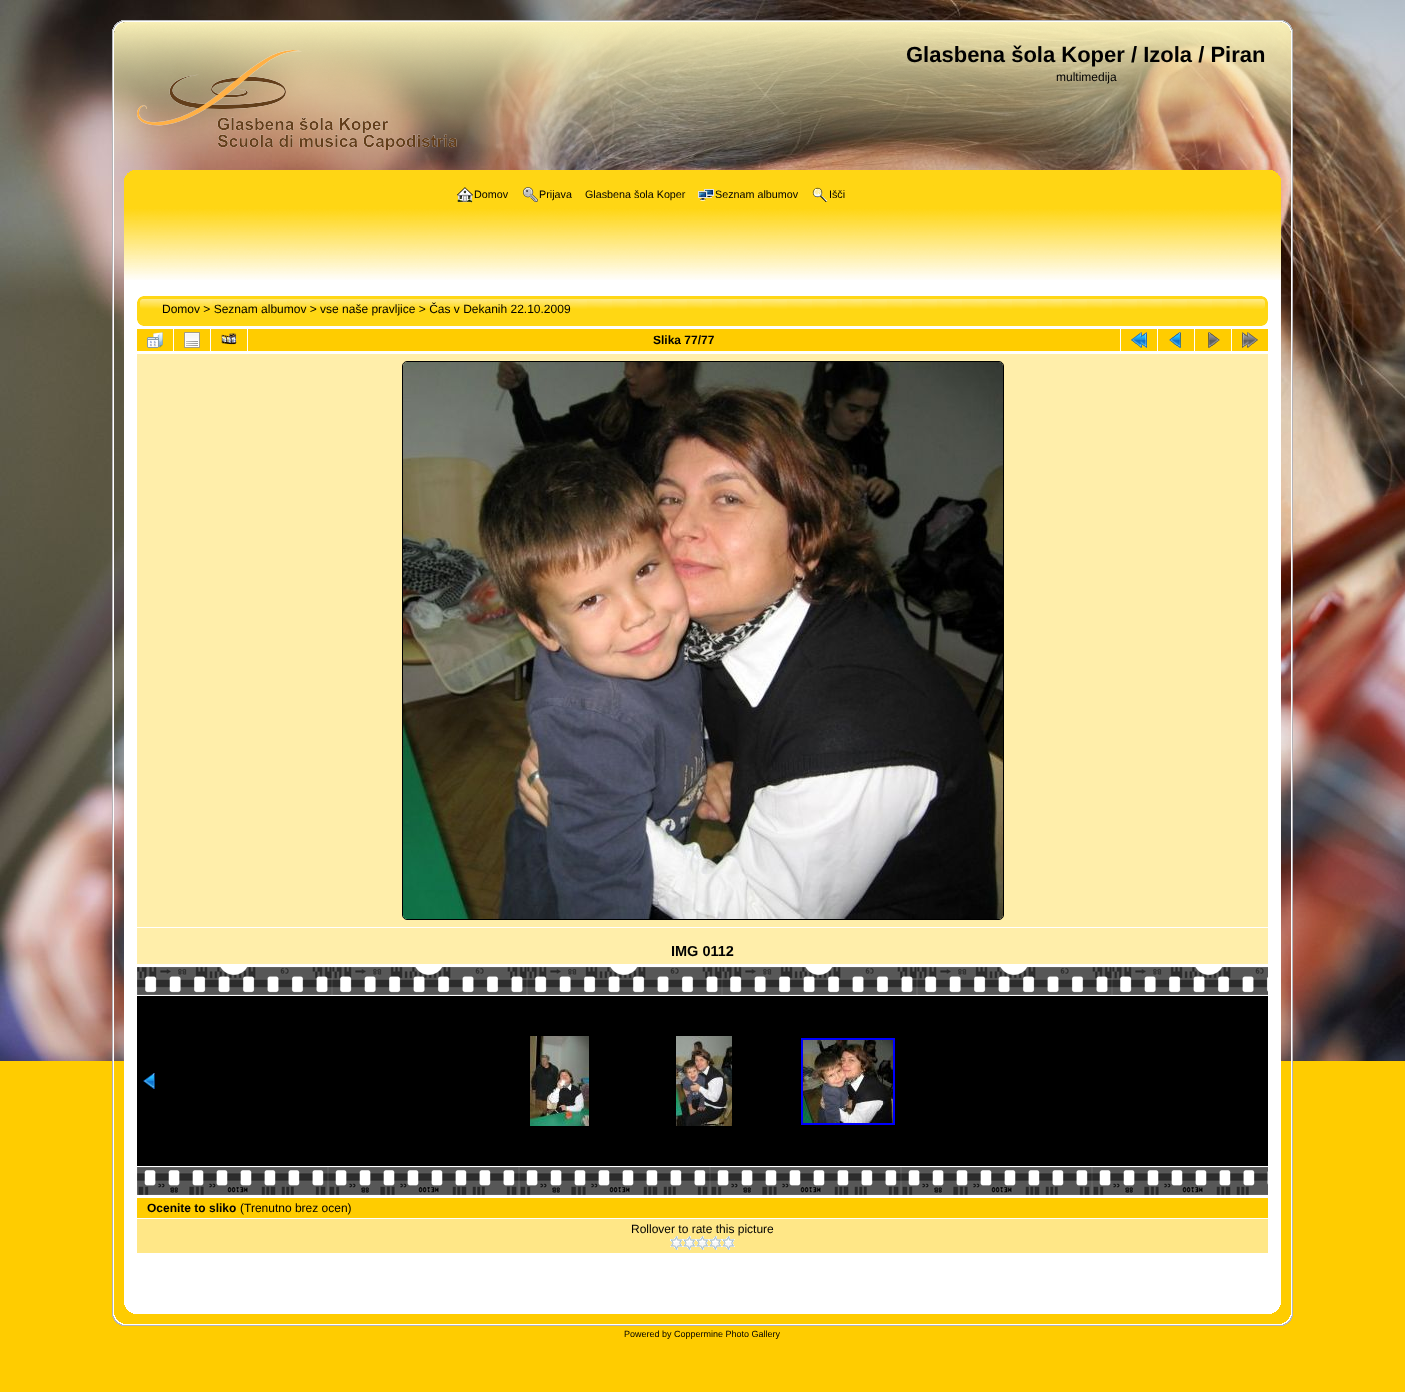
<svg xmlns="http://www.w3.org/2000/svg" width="1405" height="1392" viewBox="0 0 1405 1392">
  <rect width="100%" height="100%" fill="#ffcc00"/>
  <image x="0" y="0" width="1405" height="1061" href="img1.png"/>
  <image x="112" y="20" width="25" height="150" href="img2.png"/>
  <image x="1268" y="20" width="25" height="150" href="img3.png"/>
  <image x="137" y="20" width="1131" height="148" href="img4.png"/>
  <image x="137" y="50" width="320" height="100" href="img5.png"/>
  <text x="906" y="62" font-family="Liberation Sans" font-size="22" font-weight="bold" fill="#000000">Glasbena šola Koper / Izola / Piran</text>
  <text x="1056" y="81" font-family="Liberation Sans" font-size="12" fill="#000000">multimedija</text>
  <image x="112" y="170" width="25" height="110" href="img6.png"/>
  <image x="1268" y="170" width="25" height="110" href="img7.png"/>
  <image x="137" y="170" width="1131" height="110" href="img8.png"/>
  <image x="457" y="187" width="16" height="16" href="img9.png"/>
  <text x="474" y="198" font-family="Liberation Sans" font-size="10.75" fill="#000000">Domov</text>
  <image x="523" y="187" width="15" height="16" href="img10.png"/>
  <text x="539" y="198" font-family="Liberation Sans" font-size="10.75" fill="#000000">Prijava</text>
  <text x="585" y="198" font-family="Liberation Sans" font-size="10.75" fill="#000000">Glasbena šola Koper</text>
  <image x="698" y="189" width="16" height="12" href="img11.png"/>
  <text x="715" y="198" font-family="Liberation Sans" font-size="10.75" fill="#000000">Seznam albumov</text>
  <image x="812" y="187" width="16" height="15" href="img12.png"/>
  <text x="829" y="198" font-family="Liberation Sans" font-size="10.75" fill="#000000">Išči</text>
  <image x="112" y="280" width="24" height="989" href="img13.png"/>
  <image x="1269" y="280" width="24" height="989" href="img14.png"/>
  <rect x="136" y="280" width="1133" height="989" fill="#ffffff"/>
  <image x="137" y="296" width="25" height="30" href="img15.png"/>
  <image x="1243" y="296" width="25" height="30" href="img16.png"/>
  <image x="162" y="296" width="1081" height="30" href="img17.png"/>
  <text x="162" y="313" font-family="Liberation Sans" font-size="12" fill="#000000">Domov &gt; Seznam albumov &gt; vse naše pravljice &gt; Čas v Dekanih 22.10.2009</text>
  <rect x="137" y="329" width="36" height="22" fill="#ffcc00"/>
  <image x="147" y="332" width="16" height="16" href="img18.png"/>
  <rect x="174" y="329" width="36" height="22" fill="#ffcc00"/>
  <image x="184" y="332" width="16" height="16" href="img19.png"/>
  <rect x="211" y="329" width="36" height="22" fill="#ffcc00"/>
  <image x="221" y="333" width="16" height="12" href="img20.png"/>
  <rect x="248" y="329" width="872" height="22" fill="#ffcc00"/>
  <text x="653" y="344" font-family="Liberation Sans" font-size="12" font-weight="bold" fill="#000000">Slika 77/77</text>
  <rect x="1121" y="329" width="36" height="22" fill="#ffcc00"/>
  <image x="1131" y="332" width="16" height="16" href="img21.png"/>
  <rect x="1158" y="329" width="36" height="22" fill="#ffcc00"/>
  <image x="1169" y="332" width="12" height="16" href="img22.png"/>
  <rect x="1195" y="329" width="36" height="22" fill="#ffcc00"/>
  <image x="1208" y="332" width="12" height="16" href="img23.png"/>
  <rect x="1232" y="329" width="36" height="22" fill="#ffcc00"/>
  <image x="1242" y="332" width="16" height="16" href="img24.png"/>
  <rect x="137" y="354" width="1131" height="573" fill="#ffeeaa"/>
  <rect x="402.5" y="361.5" width="601" height="558" rx="4.5" fill="none" stroke="#000000"/>
  <image x="403" y="362" width="600" height="557" href="img25.png"/>
  <rect x="137" y="928" width="1131" height="36" fill="#ffeeaa"/>
  <text x="671" y="956" font-family="Liberation Sans" font-size="14.5" font-weight="bold" fill="#000000">IMG 0112</text>
  <image x="137" y="967" width="1131" height="28" href="img26.png"/>
  <rect x="137" y="996" width="1131" height="170" fill="#000000"/>
  <image x="143" y="1073" width="12" height="16" href="img27.png"/>
  <image x="530" y="1036" width="59" height="90" href="img28.png"/>
  <image x="676" y="1036" width="56" height="90" href="img29.png"/>
  <rect x="802" y="1039" width="92" height="85" fill="none" stroke="#0000ff" stroke-width="2"/>
  <image x="803" y="1040" width="90" height="83" href="img30.png"/>
  <image x="137" y="1167" width="1131" height="28" href="img31.png"/>
  <rect x="137" y="1198" width="1131" height="20" fill="#ffcc00"/>
  <text x="147" y="1212" font-family="Liberation Sans" font-size="12" font-weight="bold" fill="#000000">Ocenite to sliko</text>
  <text x="240" y="1212" font-family="Liberation Sans" font-size="12" fill="#000000">(Trenutno brez ocen)</text>
  <rect x="137" y="1219" width="1131" height="34" fill="#ffe787"/>
  <text x="631" y="1233" font-family="Liberation Sans" font-size="12" fill="#000000">Rollover to rate this picture</text>
  <image x="670" y="1236" width="13" height="14" href="img32.png"/>
  <image x="683" y="1236" width="13" height="14" href="img32.png"/>
  <image x="696" y="1236" width="13" height="14" href="img32.png"/>
  <image x="709" y="1236" width="13" height="14" href="img32.png"/>
  <image x="722" y="1236" width="13" height="14" href="img32.png"/>
  <image x="112" y="1269" width="25" height="57" href="img33.png"/>
  <image x="1268" y="1269" width="25" height="57" href="img34.png"/>
  <image x="137" y="1269" width="1131" height="57" href="img35.png"/>
  <text x="624" y="1337" font-family="Liberation Sans" font-size="9" fill="#000000">Powered by Coppermine Photo Gallery</text>
</svg>
